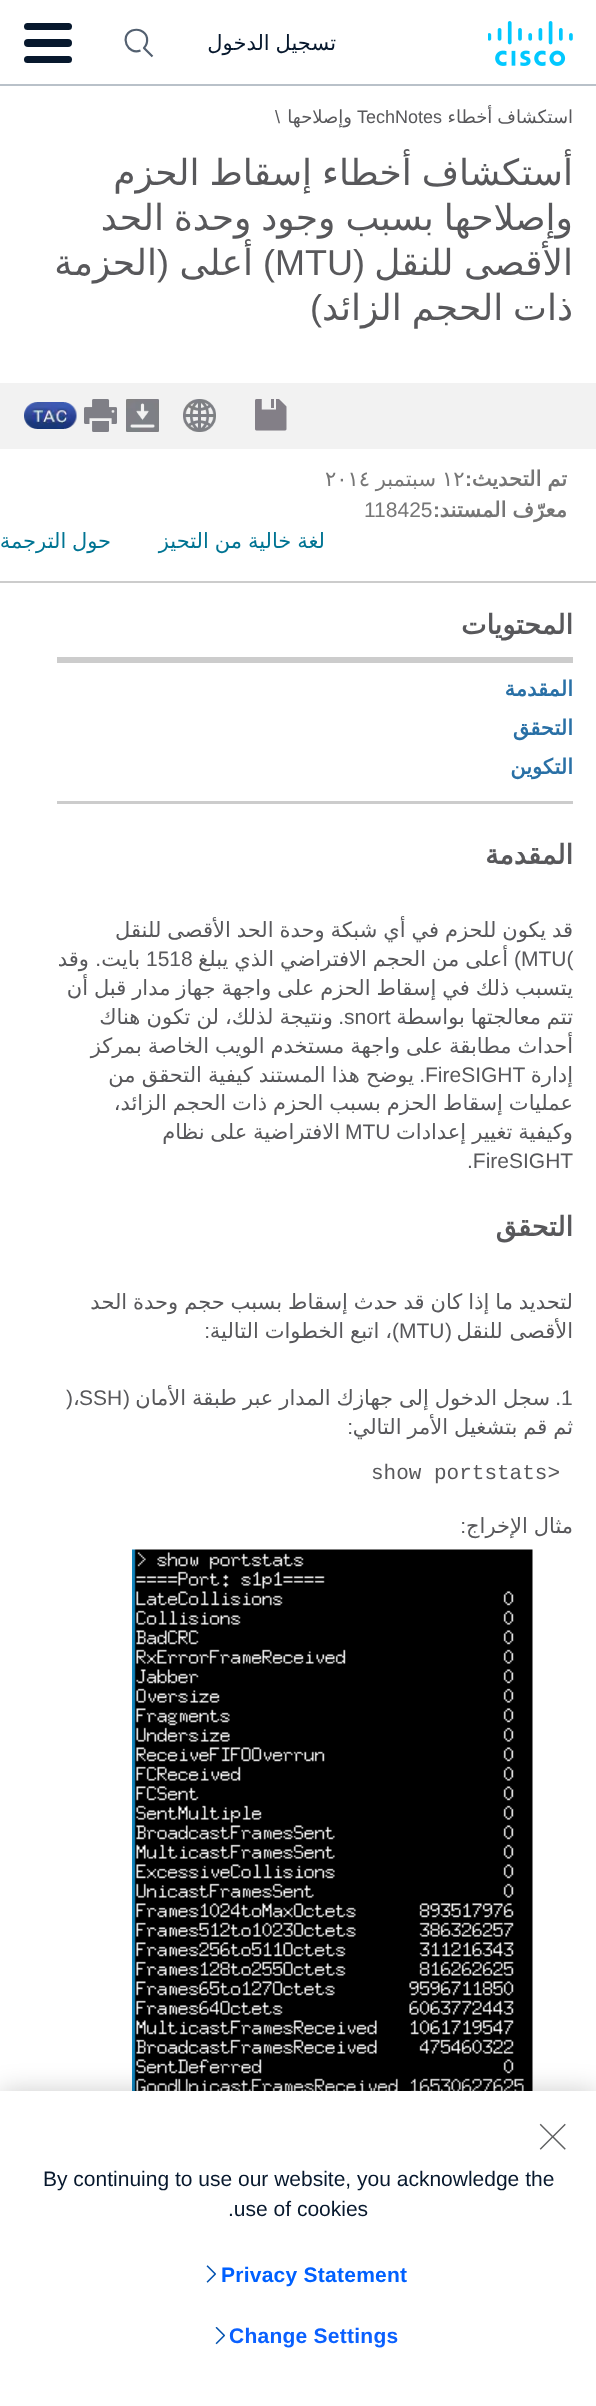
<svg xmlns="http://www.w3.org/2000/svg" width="596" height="2406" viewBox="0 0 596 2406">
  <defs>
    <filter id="blur1" x="-50%" y="-200%" width="200%" height="500%"><feGaussianBlur stdDeviation="13.5"/></filter>
  </defs>
  <rect width="100%" height="100%" fill="#ffffff"/>
  <rect x="0" y="84" width="596" height="2" fill="#b9c1c9"/>
  <image x="488" y="21" width="85" height="45" href="img1.png"/>
  <text x="336" y="50" word-spacing="-0.75" font-family="DejaVu Sans" font-size="21" direction="rtl" fill="#07182d">تسجيل الدخول</text>
  <path d="M140.5 50.5C127.5 55.5 119 36 132 30.5C135 29.5 138 29.5 140.5 30.5C144 32 146.5 35 147 38C147.5 42 146.5 45.5 144 48L152.5 56.5" fill="none" stroke="#536070" stroke-width="2.2" stroke-linejoin="round"/>
  <rect x="24" y="23" width="48" height="7" rx="3.5" fill="#07182d"/>
  <rect x="24" y="39" width="48" height="8" rx="4" fill="#07182d"/>
  <rect x="24" y="56" width="48" height="7" rx="3.5" fill="#07182d"/>
  <text x="573" y="123" word-spacing="-0.75" font-family="DejaVu Sans" font-size="18" direction="rtl" fill="#58585b">استكشاف أخطاء</text>
  <text x="357" y="123" font-family="Liberation Sans" font-size="18" fill="#58585b">TechNotes</text>
  <text x="352" y="123" font-family="DejaVu Sans" font-size="18" direction="rtl" fill="#58585b">وإصلاحها</text>
  <text x="275" y="123" font-family="Liberation Sans" font-size="18" fill="#58585b">\</text>
  <text x="573" y="185" word-spacing="-1.5" font-family="DejaVu Sans" font-size="36" direction="rtl" fill="#58585b">أستكشاف أخطاء إسقاط الحزم</text>
  <text x="573" y="230" word-spacing="-1.5" font-family="DejaVu Sans" font-size="36" direction="rtl" fill="#58585b">وإصلاحها بسبب وجود وحدة الحد</text>
  <text x="573" y="275" word-spacing="-1" font-family="DejaVu Sans" font-size="36" direction="rtl" fill="#58585b">الأقصى للنقل</text>
  <text x="365" y="275" font-family="Liberation Sans" font-size="36" direction="rtl" fill="#58585b">(</text>
  <text x="275" y="275" font-family="Liberation Sans" font-size="36" fill="#58585b">MTU</text>
  <text x="275" y="275" font-family="Liberation Sans" font-size="36" direction="rtl" fill="#58585b">)</text>
  <text x="253" y="275" font-family="DejaVu Sans" font-size="36" direction="rtl" fill="#58585b">أعلى</text>
  <text x="169" y="275" font-family="Liberation Sans" font-size="36" direction="rtl" fill="#58585b">(</text>
  <text x="157" y="275" font-family="DejaVu Sans" font-size="36" direction="rtl" fill="#58585b">الحزمة</text>
  <text x="573" y="320" word-spacing="-1.5" font-family="DejaVu Sans" font-size="36" direction="rtl" fill="#58585b">ذات الحجم الزائد</text>
  <text x="322" y="320" font-family="Liberation Sans" font-size="36" direction="rtl" fill="#58585b">)</text>
  <rect x="0" y="581" width="596" height="2" fill="#cccccc"/>
  <rect x="0" y="383" width="596" height="66" fill="#f2f2f2"/>
  <image x="255" y="399" width="32" height="32" href="img2.png"/>
  <image x="183" y="399" width="33" height="33" href="img3.png"/>
  <image x="126" y="399" width="33" height="33" href="img4.png"/>
  <image x="84" y="399" width="33" height="33" href="img5.png"/>
  <image x="24" y="402" width="53" height="27" href="img6.png"/>
  <text x="567" y="486" word-spacing="-0.75" font-family="DejaVu Sans" font-size="21" font-weight="bold" direction="rtl" fill="#767676">تم التحديث</text>
  <text x="472" y="486" font-family="Liberation Sans" font-size="21" font-weight="bold" direction="rtl" fill="#767676">:</text>
  <text x="442" y="486" font-family="DejaVu Sans" font-size="21" fill="#767676">١٢</text>
  <text x="436" y="486" font-family="DejaVu Sans" font-size="21" direction="rtl" fill="#767676">سبتمبر</text>
  <text x="325" y="486" font-family="DejaVu Sans" font-size="21" fill="#767676">٢٠١٤</text>
  <text x="567" y="517" word-spacing="-0.75" font-family="DejaVu Sans" font-size="21" font-weight="bold" direction="rtl" fill="#767676">معرّف المستند</text>
  <text x="440" y="517" font-family="Liberation Sans" font-size="21" font-weight="bold" direction="rtl" fill="#767676">:</text>
  <text x="364" y="517" font-family="Liberation Sans" font-size="21" fill="#767676">118425</text>
  <text x="325" y="548" word-spacing="-0.75" font-family="DejaVu Sans" font-size="21" direction="rtl" fill="#007493">لغة خالية من التحيز</text>
  <text x="111" y="548" word-spacing="-1" font-family="DejaVu Sans" font-size="21" direction="rtl" fill="#007493">حول الترجمة</text>
  <rect x="57" y="801" width="516" height="3" fill="#cccccc"/>
  <rect x="57" y="657" width="516" height="6" fill="#cccccc"/>
  <text x="573" y="634" font-family="DejaVu Sans" font-size="27" font-weight="bold" direction="rtl" fill="#58585b">المحتويات</text>
  <text x="573" y="696" font-family="DejaVu Sans" font-size="21" font-weight="bold" direction="rtl" fill="#2970a6">المقدمة</text>
  <text x="573" y="735" font-family="DejaVu Sans" font-size="21" font-weight="bold" direction="rtl" fill="#2970a6">التحقق</text>
  <text x="573" y="774" font-family="DejaVu Sans" font-size="21" font-weight="bold" direction="rtl" fill="#2970a6">التكوين</text>
  <text x="573" y="864" font-family="DejaVu Sans" font-size="27" font-weight="bold" direction="rtl" fill="#58585b">المقدمة</text>
  <text x="573" y="937" word-spacing="-0.75" font-family="DejaVu Sans" font-size="21" direction="rtl" fill="#58585b">قد يكون للحزم في أي شبكة وحدة الحد الأقصى للنقل</text>
  <text x="521" y="966" font-family="Liberation Sans" font-size="21" fill="#58585b">MTU(</text>
  <text x="521" y="966" font-family="Liberation Sans" font-size="21" direction="rtl" fill="#58585b">)</text>
  <text x="508" y="966" word-spacing="-0.75" font-family="DejaVu Sans" font-size="21" direction="rtl" fill="#58585b">أعلى من الحجم الافتراضي الذي يبلغ</text>
  <text x="146" y="966" font-family="Liberation Sans" font-size="21" fill="#58585b">1518</text>
  <text x="140" y="966" font-family="DejaVu Sans" font-size="21" direction="rtl" fill="#58585b">بايت</text>
  <text x="101" y="966" font-family="Liberation Sans" font-size="21" direction="rtl" fill="#58585b">.</text>
  <text x="89" y="966" font-family="DejaVu Sans" font-size="21" direction="rtl" fill="#58585b">وقد</text>
  <text x="573" y="995" word-spacing="-0.75" font-family="DejaVu Sans" font-size="21" direction="rtl" fill="#58585b">يتسبب ذلك في إسقاط الحزم على واجهة جهاز مدار قبل أن</text>
  <text x="573" y="1024" word-spacing="-0.75" font-family="DejaVu Sans" font-size="21" direction="rtl" fill="#58585b">تتم معالجتها بواسطة</text>
  <text x="344" y="1024" font-family="Liberation Sans" font-size="21" fill="#58585b">snort</text>
  <text x="344" y="1024" font-family="Liberation Sans" font-size="21" direction="rtl" fill="#58585b">.</text>
  <text x="333" y="1024" word-spacing="-0.5" font-family="DejaVu Sans" font-size="21" direction="rtl" fill="#58585b">ونتيجة لذلك، لن تكون هناك</text>
  <text x="573" y="1053" word-spacing="-0.75" font-family="DejaVu Sans" font-size="21" direction="rtl" fill="#58585b">أحداث مطابقة على واجهة مستخدم الويب الخاصة بمركز</text>
  <text x="573" y="1082" font-family="DejaVu Sans" font-size="21" direction="rtl" fill="#58585b">إدارة</text>
  <text x="425" y="1082" font-family="Liberation Sans" font-size="21" fill="#58585b">FireSIGHT</text>
  <text x="425" y="1082" font-family="Liberation Sans" font-size="21" direction="rtl" fill="#58585b">.</text>
  <text x="414" y="1082" word-spacing="-0.5" font-family="DejaVu Sans" font-size="21" direction="rtl" fill="#58585b">يوضح هذا المستند كيفية التحقق من</text>
  <text x="573" y="1110" word-spacing="-0.75" font-family="DejaVu Sans" font-size="21" direction="rtl" fill="#58585b">عمليات إسقاط الحزم بسبب الحزم ذات الحجم الزائد،</text>
  <text x="573" y="1139" word-spacing="-0.75" font-family="DejaVu Sans" font-size="21" direction="rtl" fill="#58585b">وكيفية تغيير إعدادات</text>
  <text x="345" y="1139" font-family="Liberation Sans" font-size="21" fill="#58585b">MTU</text>
  <text x="340" y="1139" word-spacing="-1" font-family="DejaVu Sans" font-size="21" direction="rtl" fill="#58585b">الافتراضية على نظام</text>
  <text x="467" y="1168" font-family="Liberation Sans" font-size="21" fill="#58585b">.FireSIGHT</text>
  <text x="573" y="1236" font-family="DejaVu Sans" font-size="27" font-weight="bold" direction="rtl" fill="#58585b">التحقق</text>
  <text x="573" y="1309" word-spacing="-0.75" font-family="DejaVu Sans" font-size="21" direction="rtl" fill="#58585b">لتحديد ما إذا كان قد حدث إسقاط بسبب حجم وحدة الحد</text>
  <text x="573" y="1338" font-family="DejaVu Sans" font-size="21" direction="rtl" fill="#58585b">الأقصى للنقل</text>
  <text x="452" y="1338" font-family="Liberation Sans" font-size="21" direction="rtl" fill="#58585b">(</text>
  <text x="399" y="1338" font-family="Liberation Sans" font-size="21" fill="#58585b">MTU</text>
  <text x="392" y="1338" word-spacing="-0.75" font-family="DejaVu Sans" font-size="21" direction="rtl" fill="#58585b">، اتبع الخطوات التالية</text>
  <text x="399" y="1338" font-family="Liberation Sans" font-size="21" direction="rtl" fill="#58585b">)</text>
  <text x="210" y="1338" font-family="Liberation Sans" font-size="21" direction="rtl" fill="#58585b">:</text>
  <text x="561" y="1405" font-family="Liberation Sans" font-size="21" fill="#58585b">1</text>
  <text x="561" y="1405" font-family="Liberation Sans" font-size="21" direction="rtl" fill="#58585b">.</text>
  <text x="550" y="1405" word-spacing="-0.75" font-family="DejaVu Sans" font-size="21" direction="rtl" fill="#58585b">سجل الدخول إلى جهازك المدار عبر طبقة الأمان</text>
  <text x="130" y="1405" font-family="Liberation Sans" font-size="21" direction="rtl" fill="#58585b">(</text>
  <text x="79" y="1405" font-family="Liberation Sans" font-size="21" fill="#58585b">SSH</text>
  <text x="73" y="1405" font-family="DejaVu Sans" font-size="21" fill="#58585b">،</text>
  <text x="66" y="1405" font-family="Liberation Sans" font-size="21" fill="#58585b">)</text>
  <text x="573" y="1434" word-spacing="-0.75" font-family="DejaVu Sans" font-size="21" direction="rtl" fill="#58585b">ثم قم بتشغيل الأمر التالي</text>
  <text x="353" y="1434" font-family="Liberation Sans" font-size="21" direction="rtl" fill="#58585b">:</text>
  <text x="371" y="1479" font-family="Liberation Mono" font-size="21" fill="#58585b">show portstats&gt;</text>
  <text x="573" y="1533" word-spacing="-0.75" font-family="DejaVu Sans" font-size="21" direction="rtl" fill="#58585b">مثال الإخراج</text>
  <text x="466" y="1533" font-family="Liberation Sans" font-size="21" direction="rtl" fill="#58585b">:</text>
  <image x="132" y="1549" width="401" height="542" href="img7.png"/>
  <rect x="0" y="2091" width="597" height="315" fill="#000000" fill-opacity="0.2" filter="url(#blur1)"/>
  <rect x="0" y="2091" width="596" height="315" fill="#ffffff"/>
  <image x="539" y="2123" width="27" height="27" href="img8.png"/>
  <text x="43" y="2186" font-family="Liberation Sans" font-size="21" fill="#07182d">By continuing to use our website, you acknowledge the</text>
  <text x="228" y="2216" font-family="Liberation Sans" font-size="21" fill="#07182d">.use of cookies</text>
  <text x="221" y="2282" font-family="Liberation Sans" font-size="21" font-weight="bold" letter-spacing="0.25" fill="#0060ff">Privacy Statement</text>
  <image x="206" y="2265" width="10" height="18" href="img9.png"/>
  <text x="229" y="2343" font-family="Liberation Sans" font-size="21" font-weight="bold" letter-spacing="0.25" fill="#0a60ff">Change Settings</text>
  <image x="215" y="2327" width="10" height="18" href="img10.png"/>
</svg>
